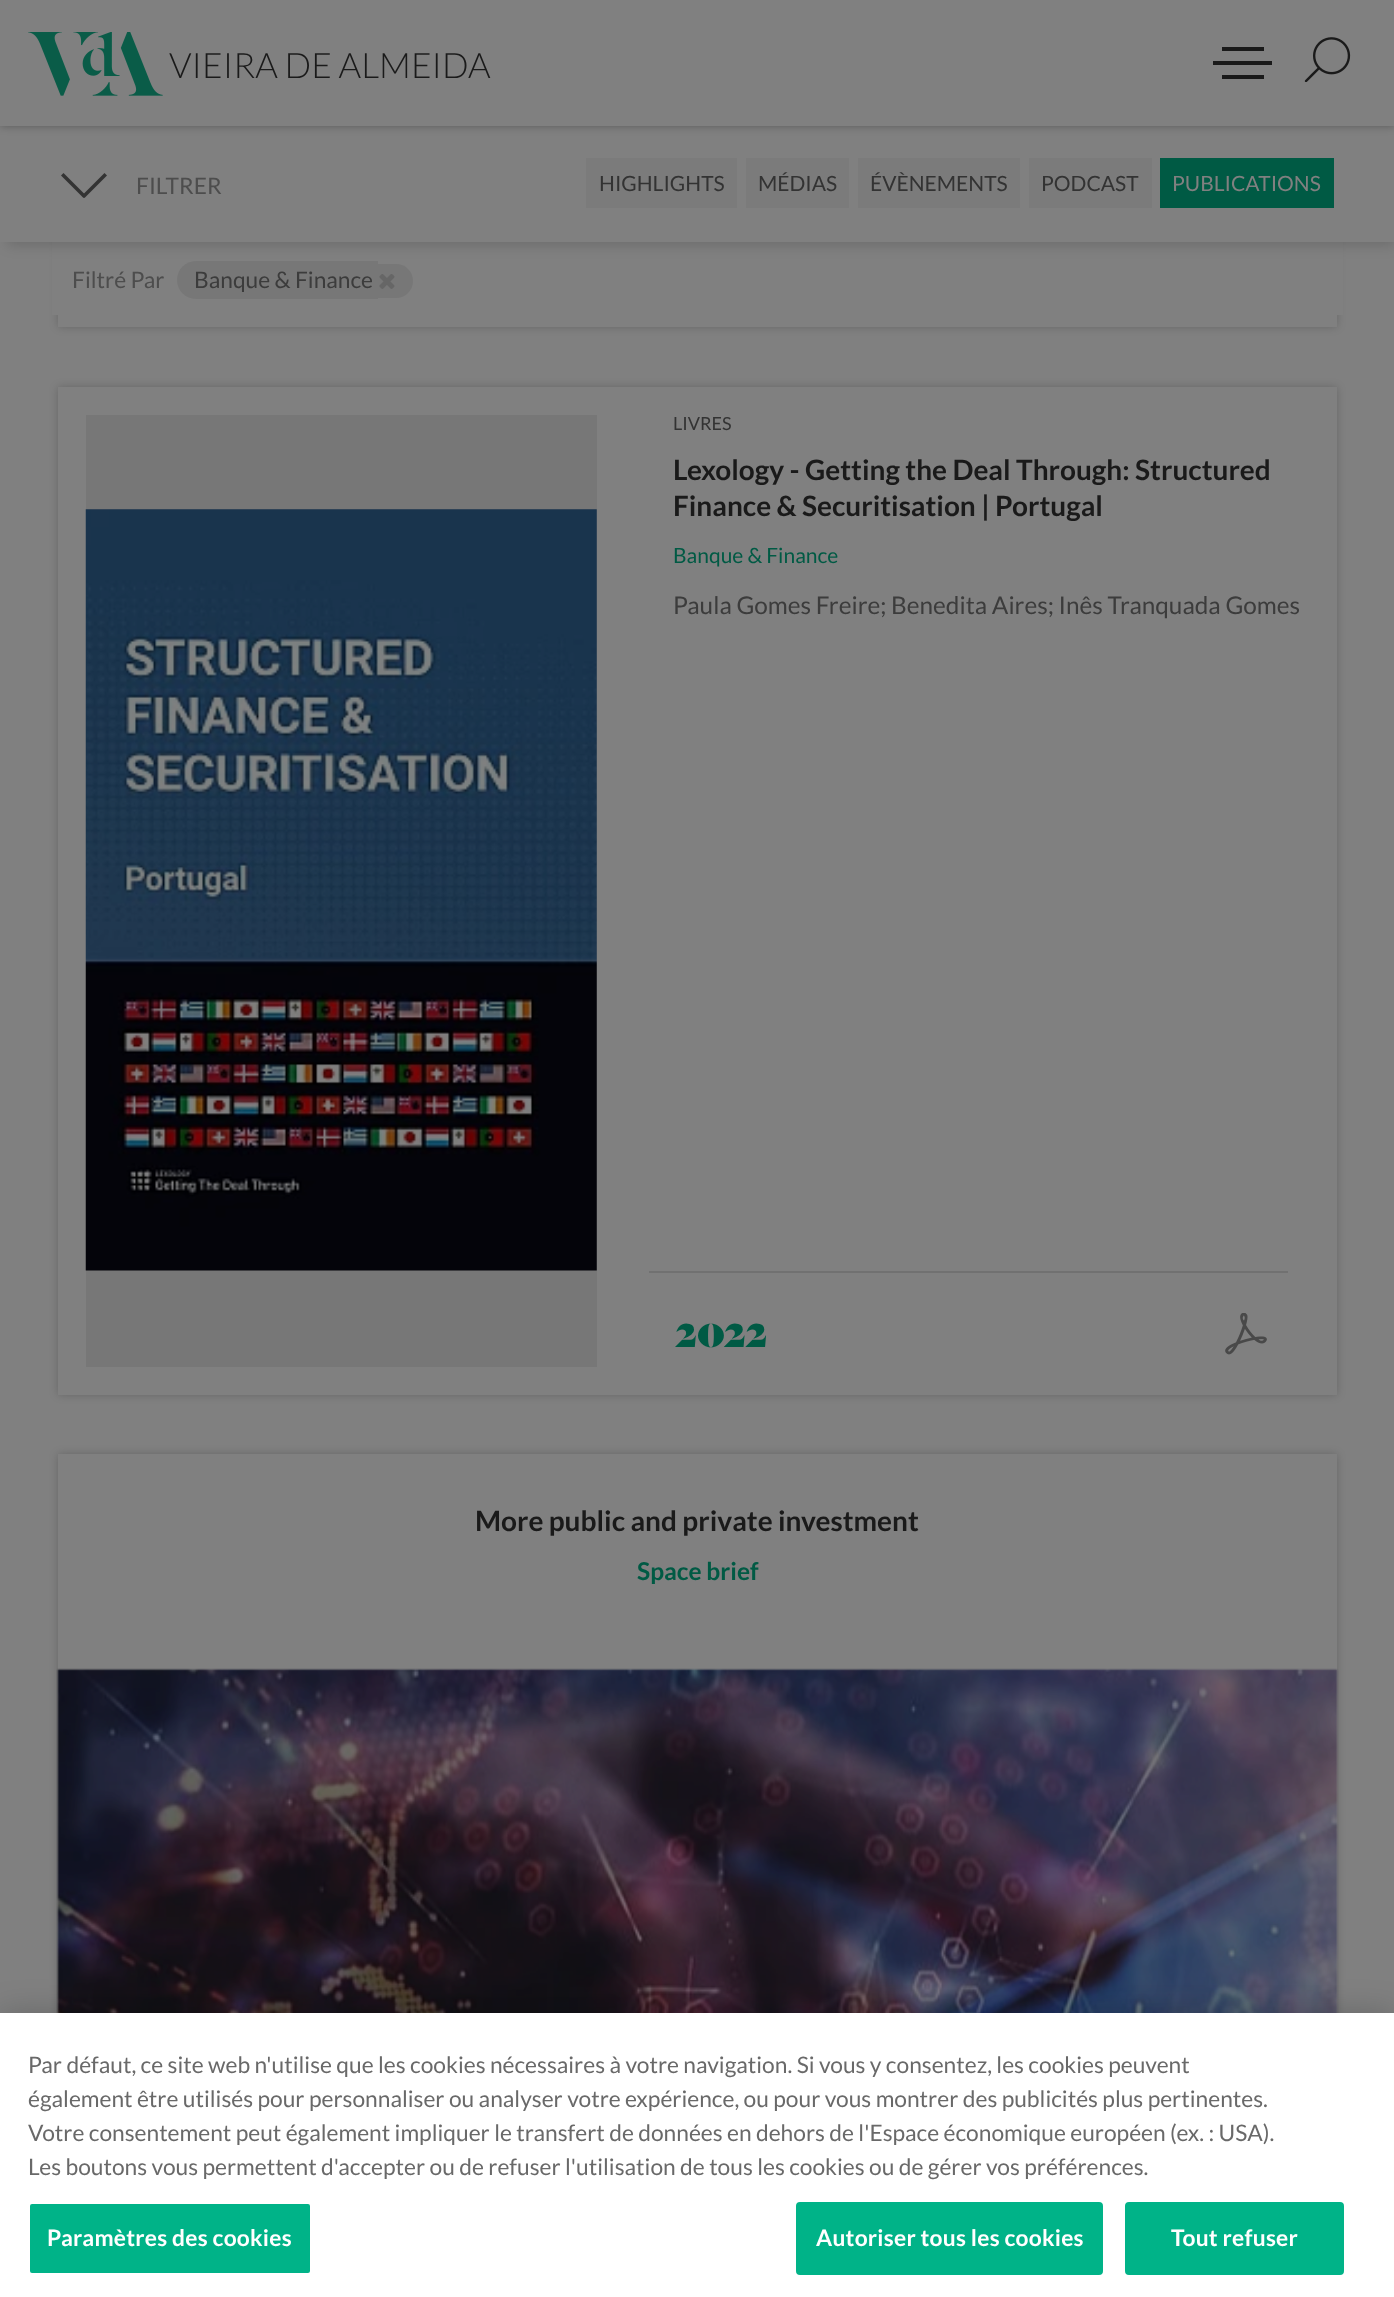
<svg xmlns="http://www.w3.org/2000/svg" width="1394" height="2297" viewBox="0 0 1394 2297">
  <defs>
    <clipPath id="clip1"><path d="M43 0H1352V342H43ZM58-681H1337V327H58Z" clip-rule="evenodd"/></clipPath>
    <filter id="blur1" x="-50%" y="-200%" width="200%" height="500%"><feGaussianBlur stdDeviation="4.5"/></filter>
    <filter id="blur2" x="-50%" y="-200%" width="200%" height="500%"><feGaussianBlur stdDeviation="7"/></filter>
    <clipPath id="clip2"><path d="M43 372H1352V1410H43ZM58 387H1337V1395H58Z" clip-rule="evenodd"/></clipPath>
    <clipPath id="clip3"><path d="M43 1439H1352V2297H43ZM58 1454H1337V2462H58Z" clip-rule="evenodd"/></clipPath>
    <filter id="blur3" x="-50%" y="-200%" width="200%" height="500%"><feGaussianBlur stdDeviation="16"/></filter>
  </defs>
  <rect width="100%" height="100%" fill="#808080"/>
  <g clip-path="url(#clip1)">
    <rect x="58" y="-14" width="1279" height="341" fill="#000000" fill-opacity="0.2" filter="url(#blur1)"/>
  </g>
  <rect x="52" y="242" width="1291" height="73" fill="#808080"/>
  <rect x="7" y="137" width="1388" height="108" fill="#000000" fill-opacity="0.16" filter="url(#blur2)"/>
  <rect x="0" y="126" width="1394" height="116" fill="#808080"/>
  <rect x="0" y="0" width="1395" height="126" fill="#000000" fill-opacity="0.3" filter="url(#blur1)"/>
  <rect x="0" y="0" width="1394" height="126" fill="#808080"/>
  <image x="28" y="32" width="135" height="64" href="img1.png"/>
  <text x="169" y="78" font-family="Lato" font-size="35" font-weight="300" fill="#1a1a1a">VIEIRA DE ALMEIDA</text>
  <rect x="1222" y="47" width="42" height="4" fill="#1a1a1a"/>
  <rect x="1213" y="61" width="59" height="4" fill="#1a1a1a"/>
  <rect x="1222" y="75" width="42" height="4" fill="#1a1a1a"/>
  <image x="1304" y="37" width="47" height="45" href="img2.png"/>
  <path d="M63.5 173L86 195.5L83.5 198L61 175.5Z" fill="#333333"/>
  <path d="M82 195.5L104.5 173L107 175.5L84.5 198Z" fill="#333333"/>
  <text x="136" y="194" font-family="Lato" font-size="22.75" fill="#4d4d4d">FILTRER</text>
  <rect x="586" y="158" width="151" height="50" fill="#7b7b7b"/>
  <text x="599" y="191" font-family="Lato" font-size="21" fill="#333333">HIGHLIGHTS</text>
  <rect x="746" y="158" width="103" height="50" fill="#7b7b7b"/>
  <text x="758" y="191" font-family="Lato" font-size="21" fill="#333333">MÉDIAS</text>
  <rect x="858" y="158" width="162" height="50" fill="#7b7b7b"/>
  <text x="870" y="191" font-family="Lato" font-size="21" fill="#333333">ÉVÈNEMENTS</text>
  <rect x="1029" y="158" width="123" height="50" fill="#7b7b7b"/>
  <text x="1041" y="191" font-family="Lato" font-size="21" fill="#333333">PODCAST</text>
  <rect x="1160" y="158" width="174" height="50" fill="#005a44"/>
  <text x="1172" y="191" font-family="Lato" font-size="21" fill="#808080">PUBLICATIONS</text>
  <text x="72" y="288" font-family="Lato" font-size="22.75" fill="#4d4d4d">Filtré Par</text>
  <path d="M196 261H378V299H196C185.5 299 177 290.5 177 280C177 269.5 185.5 261 196 261Z" fill="#777777"/>
  <path d="M378 264H396C405.5 264 413 271.5 413 281C413 290.5 405.5 298 396 298H378Z" fill="#777777"/>
  <text x="194" y="288" font-family="Lato" font-size="22.75" fill="#3c3c3c">Banque &amp; Finance</text>
  <image x="379" y="274" width="16" height="15" href="img3.png"/>
  <g clip-path="url(#clip2)">
    <rect x="58" y="387" width="1279" height="1008" fill="#000000" fill-opacity="0.2" filter="url(#blur1)"/>
  </g>
  <rect x="86" y="415" width="511" height="952" fill="#777777"/>
  <image x="85" y="509" width="512" height="762" href="img4.png"/>
  <text x="673" y="430" font-family="Lato" font-size="18" fill="#333333">LIVRES</text>
  <text x="673" y="480" font-family="Lato" font-size="28" font-weight="bold" fill="#1a1a1a">Lexology - Getting the Deal Through: Structured</text>
  <text x="673" y="516" font-family="Lato" font-size="28" font-weight="bold" fill="#1a1a1a">Finance &amp; Securitisation | Portugal</text>
  <text x="673" y="563" font-family="Lato" font-size="21" fill="#005a44">Banque &amp; Finance</text>
  <text x="673" y="614" font-family="Lato" font-size="24.35" fill="#3c3c3c">Paula Gomes Freire; Benedita Aires; Inês Tranquada Gomes</text>
  <rect x="649" y="1271" width="639" height="2" fill="#717171"/>
  <text x="675" y="1347" font-family="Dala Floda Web" font-size="49" font-weight="800" fill="#005a44">2022</text>
  <image x="1225" y="1313" width="42" height="42" href="img5.png"/>
  <g clip-path="url(#clip3)">
    <rect x="58" y="1454" width="1279" height="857" fill="#000000" fill-opacity="0.2" filter="url(#blur1)"/>
  </g>
  <text x="475" y="1531" font-family="Lato" font-size="28" font-weight="bold" fill="#1a1a1a">More public and private investment</text>
  <text x="637" y="1580" font-family="Lato" font-size="24.5" font-weight="bold" fill="#005a44">Space brief</text>
  <rect x="58" y="1670" width="1279" height="343" fill="#777777"/>
  <image x="56" y="1668" width="1283" height="345" href="img6.png"/>
  <rect x="0" y="2013" width="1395" height="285" fill="#000000" fill-opacity="0.2" filter="url(#blur3)"/>
  <rect x="0" y="2013" width="1394" height="284" fill="#ffffff"/>
  <text x="28" y="2073" font-family="Lato" font-size="22.75" fill="#696969">Par défaut, ce site web n'utilise que les cookies nécessaires à votre navigation. Si vous y consentez, les cookies peuvent</text>
  <text x="28" y="2107" font-family="Lato" font-size="22.75" fill="#696969">également être utilisés pour personnaliser ou analyser votre expérience, ou pour vous montrer des publicités plus pertinentes.</text>
  <text x="28" y="2141" font-family="Lato" font-size="22.75" fill="#696969">Votre consentement peut également impliquer le transfert de données en dehors de l'Espace économique européen (ex. : USA).</text>
  <text x="28" y="2175" font-family="Lato" font-size="22.75" fill="#696969">Les boutons vous permettent d'accepter ou de refuser l'utilisation de tous les cookies ou de gérer vos préférences.</text>
  <rect x="29" y="2203" width="282" height="71" rx="3" fill="#00b388" stroke="#ffffff" stroke-width="2"/>
  <text x="47" y="2246" font-family="Lato" font-size="22.75" font-weight="bold" letter-spacing="0.25" fill="#ffffff">Paramètres des cookies</text>
  <rect x="797" y="2203" width="305" height="71" rx="3" fill="#00b388" stroke="#00b388" stroke-width="2"/>
  <text x="816" y="2246" font-family="Lato" font-size="22.75" font-weight="bold" letter-spacing="0.25" fill="#ffffff">Autoriser tous les cookies</text>
  <rect x="1126" y="2203" width="217" height="71" rx="3" fill="#00b388" stroke="#00b388" stroke-width="2"/>
  <text x="1171" y="2246" font-family="Lato" font-size="22.75" font-weight="bold" letter-spacing="0.25" fill="#ffffff">Tout refuser</text>
</svg>
